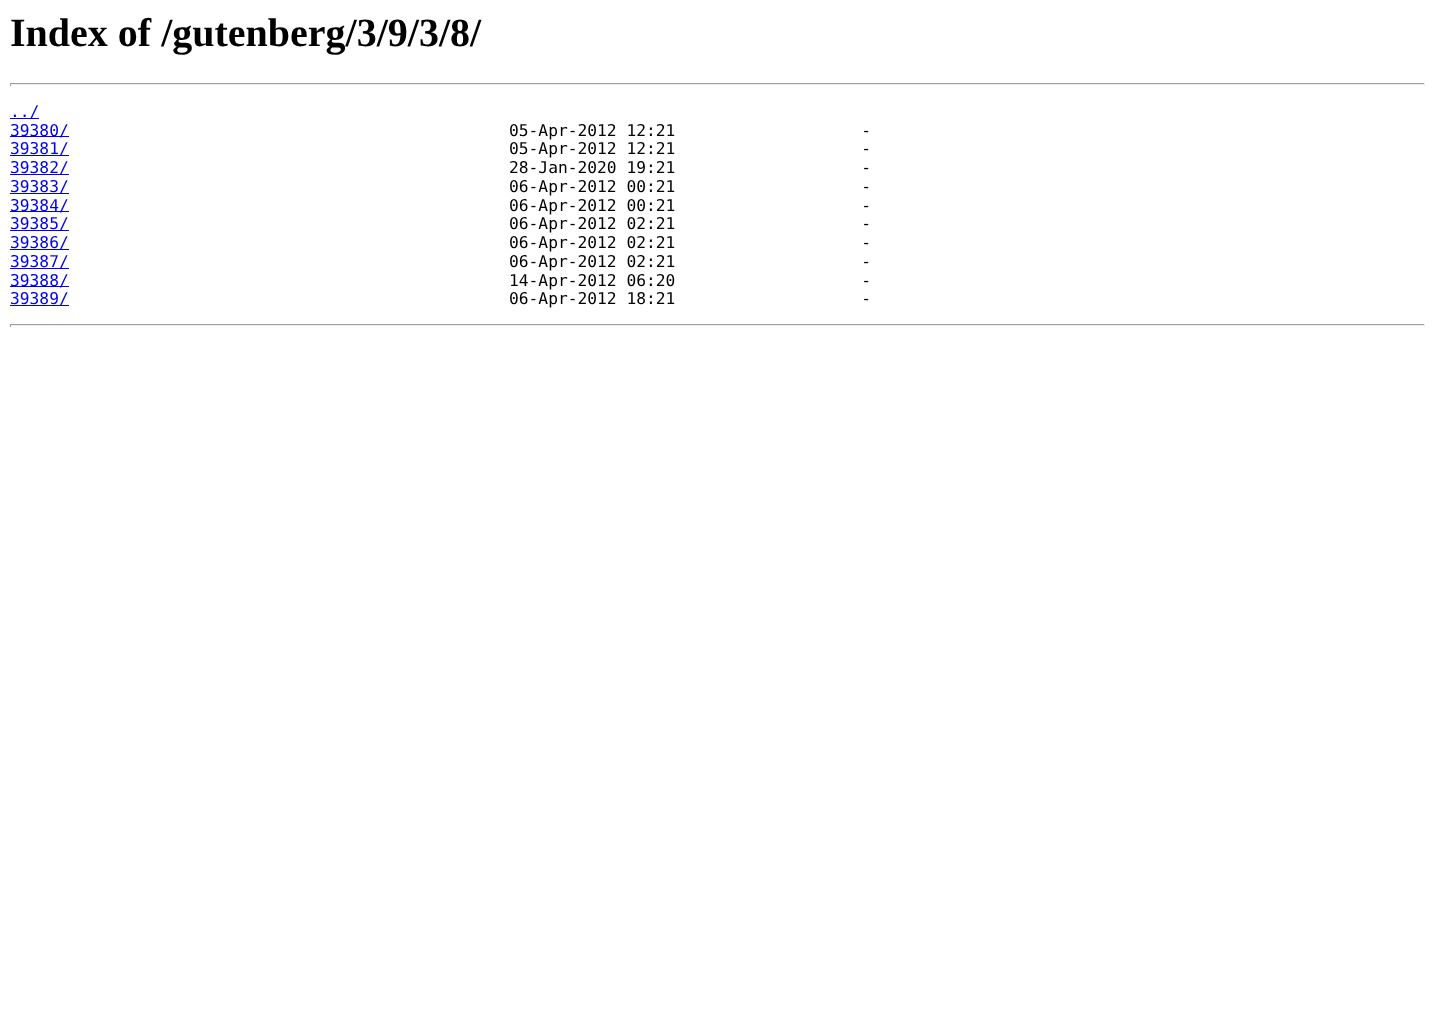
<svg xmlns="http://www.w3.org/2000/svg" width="1434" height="1031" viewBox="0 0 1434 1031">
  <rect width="100%" height="100%" fill="#ffffff"/>
  <text x="10" y="46" font-family="Liberation Serif" font-size="40" font-weight="bold" fill="#000000">Index of /gutenberg/3/9/3/8/</text>
  <rect x="10" y="83" width="1415" height="1" fill="#9f9f9f"/>
  <rect x="1424" y="83" width="1" height="3" fill="#eeeeee"/>
  <rect x="10" y="84" width="1415" height="1" fill="#eeeeee"/>
  <rect x="10" y="83" width="1" height="3" fill="#9f9f9f"/>
  <rect x="10" y="118" width="29" height="1" fill="#0000ee"/>
  <text x="10" y="117" font-family="DejaVu Sans Mono" font-size="16.25" fill="#0000ee">../</text>
  <rect x="10" y="136" width="59" height="1" fill="#0000ee"/>
  <text x="10" y="136" font-family="DejaVu Sans Mono" font-size="16.25" fill="#0000ee">39380/</text>
  <text x="509" y="136" font-family="DejaVu Sans Mono" font-size="16.25" fill="#000000" xml:space="preserve">05-Apr-2012 12:21                   -</text>
  <rect x="10" y="155" width="59" height="1" fill="#0000ee"/>
  <text x="10" y="154" font-family="DejaVu Sans Mono" font-size="16.25" fill="#0000ee">39381/</text>
  <text x="509" y="154" font-family="DejaVu Sans Mono" font-size="16.25" fill="#000000" xml:space="preserve">05-Apr-2012 12:21                   -</text>
  <rect x="10" y="174" width="59" height="1" fill="#0000ee"/>
  <text x="10" y="173" font-family="DejaVu Sans Mono" font-size="16.25" fill="#0000ee">39382/</text>
  <text x="509" y="173" font-family="DejaVu Sans Mono" font-size="16.25" fill="#000000" xml:space="preserve">28-Jan-2020 19:21                   -</text>
  <rect x="10" y="193" width="59" height="1" fill="#0000ee"/>
  <text x="10" y="192" font-family="DejaVu Sans Mono" font-size="16.25" fill="#0000ee">39383/</text>
  <text x="509" y="192" font-family="DejaVu Sans Mono" font-size="16.25" fill="#000000" xml:space="preserve">06-Apr-2012 00:21                   -</text>
  <rect x="10" y="211" width="59" height="1" fill="#0000ee"/>
  <text x="10" y="211" font-family="DejaVu Sans Mono" font-size="16.25" fill="#0000ee">39384/</text>
  <text x="509" y="211" font-family="DejaVu Sans Mono" font-size="16.25" fill="#000000" xml:space="preserve">06-Apr-2012 00:21                   -</text>
  <rect x="10" y="230" width="59" height="1" fill="#0000ee"/>
  <text x="10" y="229" font-family="DejaVu Sans Mono" font-size="16.25" fill="#0000ee">39385/</text>
  <text x="509" y="229" font-family="DejaVu Sans Mono" font-size="16.25" fill="#000000" xml:space="preserve">06-Apr-2012 02:21                   -</text>
  <rect x="10" y="249" width="59" height="1" fill="#0000ee"/>
  <text x="10" y="248" font-family="DejaVu Sans Mono" font-size="16.25" fill="#0000ee">39386/</text>
  <text x="509" y="248" font-family="DejaVu Sans Mono" font-size="16.25" fill="#000000" xml:space="preserve">06-Apr-2012 02:21                   -</text>
  <rect x="10" y="268" width="59" height="1" fill="#0000ee"/>
  <text x="10" y="267" font-family="DejaVu Sans Mono" font-size="16.25" fill="#0000ee">39387/</text>
  <text x="509" y="267" font-family="DejaVu Sans Mono" font-size="16.25" fill="#000000" xml:space="preserve">06-Apr-2012 02:21                   -</text>
  <rect x="10" y="286" width="59" height="1" fill="#0000ee"/>
  <text x="10" y="286" font-family="DejaVu Sans Mono" font-size="16.25" fill="#0000ee">39388/</text>
  <text x="509" y="286" font-family="DejaVu Sans Mono" font-size="16.25" fill="#000000" xml:space="preserve">14-Apr-2012 06:20                   -</text>
  <rect x="10" y="305" width="59" height="1" fill="#0000ee"/>
  <text x="10" y="304" font-family="DejaVu Sans Mono" font-size="16.25" fill="#0000ee">39389/</text>
  <text x="509" y="304" font-family="DejaVu Sans Mono" font-size="16.25" fill="#000000" xml:space="preserve">06-Apr-2012 18:21                   -</text>
  <rect x="10" y="324" width="1415" height="1" fill="#9f9f9f"/>
  <rect x="1424" y="324" width="1" height="3" fill="#eeeeee"/>
  <rect x="10" y="325" width="1415" height="1" fill="#eeeeee"/>
  <rect x="10" y="324" width="1" height="3" fill="#9f9f9f"/>
</svg>
